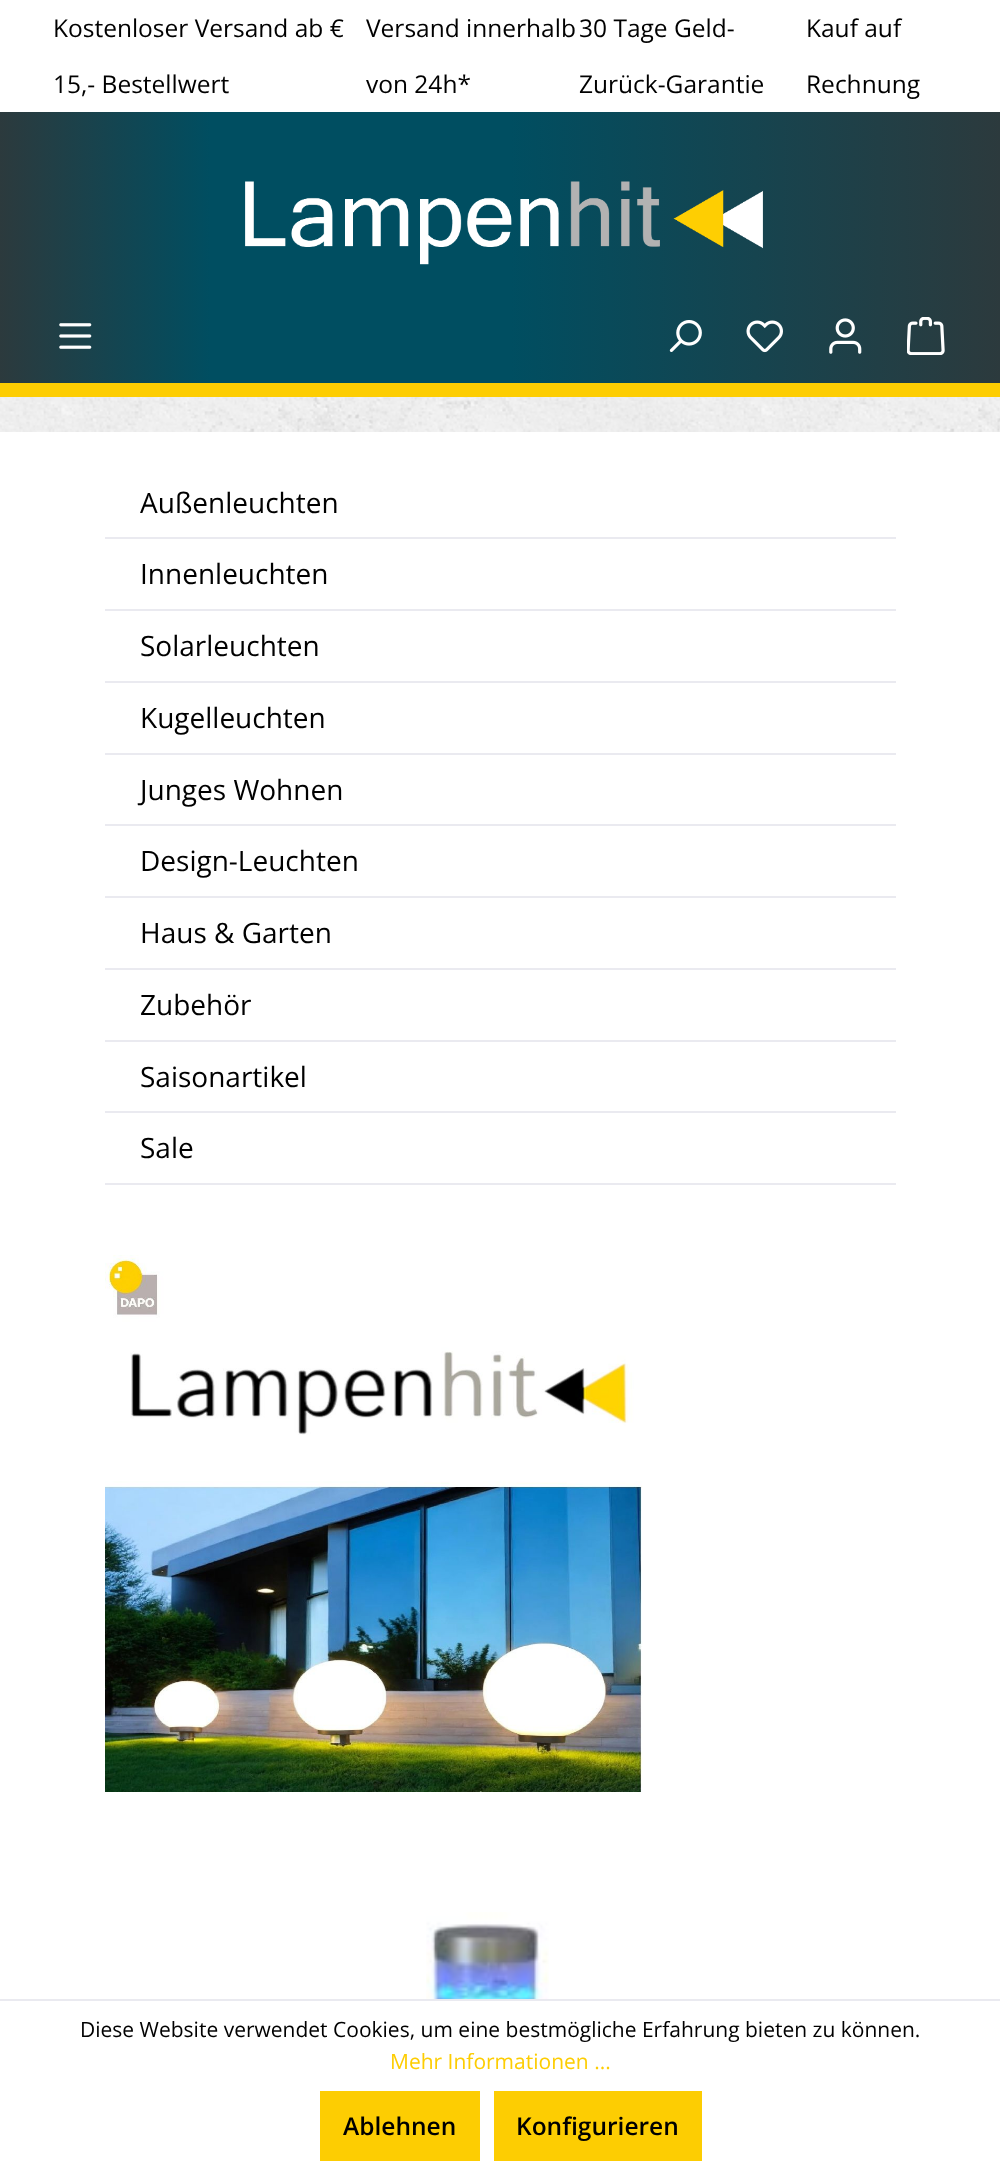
<svg xmlns="http://www.w3.org/2000/svg" width="1000" height="2174" viewBox="0 0 1000 2174">
  <defs>
    <linearGradient id="g1" gradientUnits="userSpaceOnUse" x1="0" y1="248" x2="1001" y2="248"><stop offset="0" stop-color="#2c3a3d"/><stop offset="0.21" stop-color="#004e61"/><stop offset="0.51" stop-color="#004e61"/><stop offset="1" stop-color="#2c3a3d"/></linearGradient>
  </defs>
  <rect width="100%" height="100%" fill="#ffffff"/>
  <image x="0" y="397" width="1000" height="35" href="img1.png"/>
  <text x="53" y="37" font-family="Open Sans" font-size="24.5" fill="#000000">Kostenloser Versand ab €</text>
  <text x="53" y="93" font-family="Open Sans" font-size="24.5" fill="#000000">15,- Bestellwert</text>
  <text x="366" y="37" font-family="Open Sans" font-size="24.5" fill="#000000">Versand innerhalb</text>
  <text x="366" y="93" font-family="Open Sans" font-size="24.5" fill="#000000">von 24h*</text>
  <text x="579" y="37" font-family="Open Sans" font-size="24.5" fill="#000000">30 Tage Geld-</text>
  <text x="579" y="93" font-family="Open Sans" font-size="24.5" fill="#000000">Zurück-Garantie</text>
  <text x="806" y="37" font-family="Open Sans" font-size="24.5" fill="#000000">Kauf auf</text>
  <text x="806" y="93" font-family="Open Sans" font-size="24.5" fill="#000000">Rechnung</text>
  <rect x="0" y="112" width="1000" height="271" fill="url(#g1)"/>
  <rect x="0" y="383" width="1000" height="14" fill="#fdcd02"/>
  <image x="245" y="181" width="518" height="84" href="img2.png"/>
  <image x="59" y="323" width="33" height="26" href="img3.png"/>
  <image x="669" y="320" width="33" height="32" href="img4.png"/>
  <image x="746" y="320" width="37" height="33" href="img5.png"/>
  <image x="829" y="318" width="33" height="36" href="img6.png"/>
  <image x="907" y="317" width="38" height="38" href="img7.png"/>
  <rect x="105" y="537" width="791" height="2" fill="#eaeaf0"/>
  <text x="140" y="513" font-family="Open Sans" font-size="28" fill="#000000">Außenleuchten</text>
  <rect x="105" y="609" width="791" height="2" fill="#eaeaf0"/>
  <text x="140" y="584" font-family="Open Sans" font-size="28" fill="#000000">Innenleuchten</text>
  <rect x="105" y="681" width="791" height="2" fill="#eaeaf0"/>
  <text x="140" y="656" font-family="Open Sans" font-size="28" fill="#000000">Solarleuchten</text>
  <rect x="105" y="753" width="791" height="2" fill="#eaeaf0"/>
  <text x="140" y="728" font-family="Open Sans" font-size="28" fill="#000000">Kugelleuchten</text>
  <rect x="105" y="824" width="791" height="2" fill="#eaeaf0"/>
  <text x="140" y="800" font-family="Open Sans" font-size="28" fill="#000000">Junges Wohnen</text>
  <rect x="105" y="896" width="791" height="2" fill="#eaeaf0"/>
  <text x="140" y="871" font-family="Open Sans" font-size="28" fill="#000000">Design-Leuchten</text>
  <rect x="105" y="968" width="791" height="2" fill="#eaeaf0"/>
  <text x="140" y="943" font-family="Open Sans" font-size="28" fill="#000000">Haus &amp; Garten</text>
  <rect x="105" y="1040" width="791" height="2" fill="#eaeaf0"/>
  <text x="140" y="1015" font-family="Open Sans" font-size="28" fill="#000000">Zubehör</text>
  <rect x="105" y="1111" width="791" height="2" fill="#eaeaf0"/>
  <text x="140" y="1087" font-family="Open Sans" font-size="28" fill="#000000">Saisonartikel</text>
  <rect x="105" y="1183" width="791" height="2" fill="#eaeaf0"/>
  <text x="140" y="1158" font-family="Open Sans" font-size="28" fill="#000000">Sale</text>
  <image x="105" y="1255" width="538" height="537" href="img8.png"/>
  <image x="426" y="1912" width="123" height="87" href="img9.png"/>
  <rect x="0" y="1999" width="1000" height="2" fill="#eaeaf0"/>
  <text x="80" y="2037" font-family="Open Sans" font-size="21" fill="#000000">Diese Website verwendet Cookies, um eine bestmögliche Erfahrung bieten zu können.</text>
  <text x="390" y="2069" font-family="Open Sans" font-size="21" fill="#fdcd02">Mehr Informationen ...</text>
  <rect x="320" y="2091" width="160" height="70" fill="#fdcd02"/>
  <text x="343" y="2135" font-family="Open Sans" font-size="24.5" font-weight="600" fill="#000000">Ablehnen</text>
  <rect x="494" y="2091" width="208" height="70" fill="#fdcd02"/>
  <text x="516" y="2135" font-family="Open Sans" font-size="24.5" font-weight="600" fill="#000000">Konfigurieren</text>
</svg>
